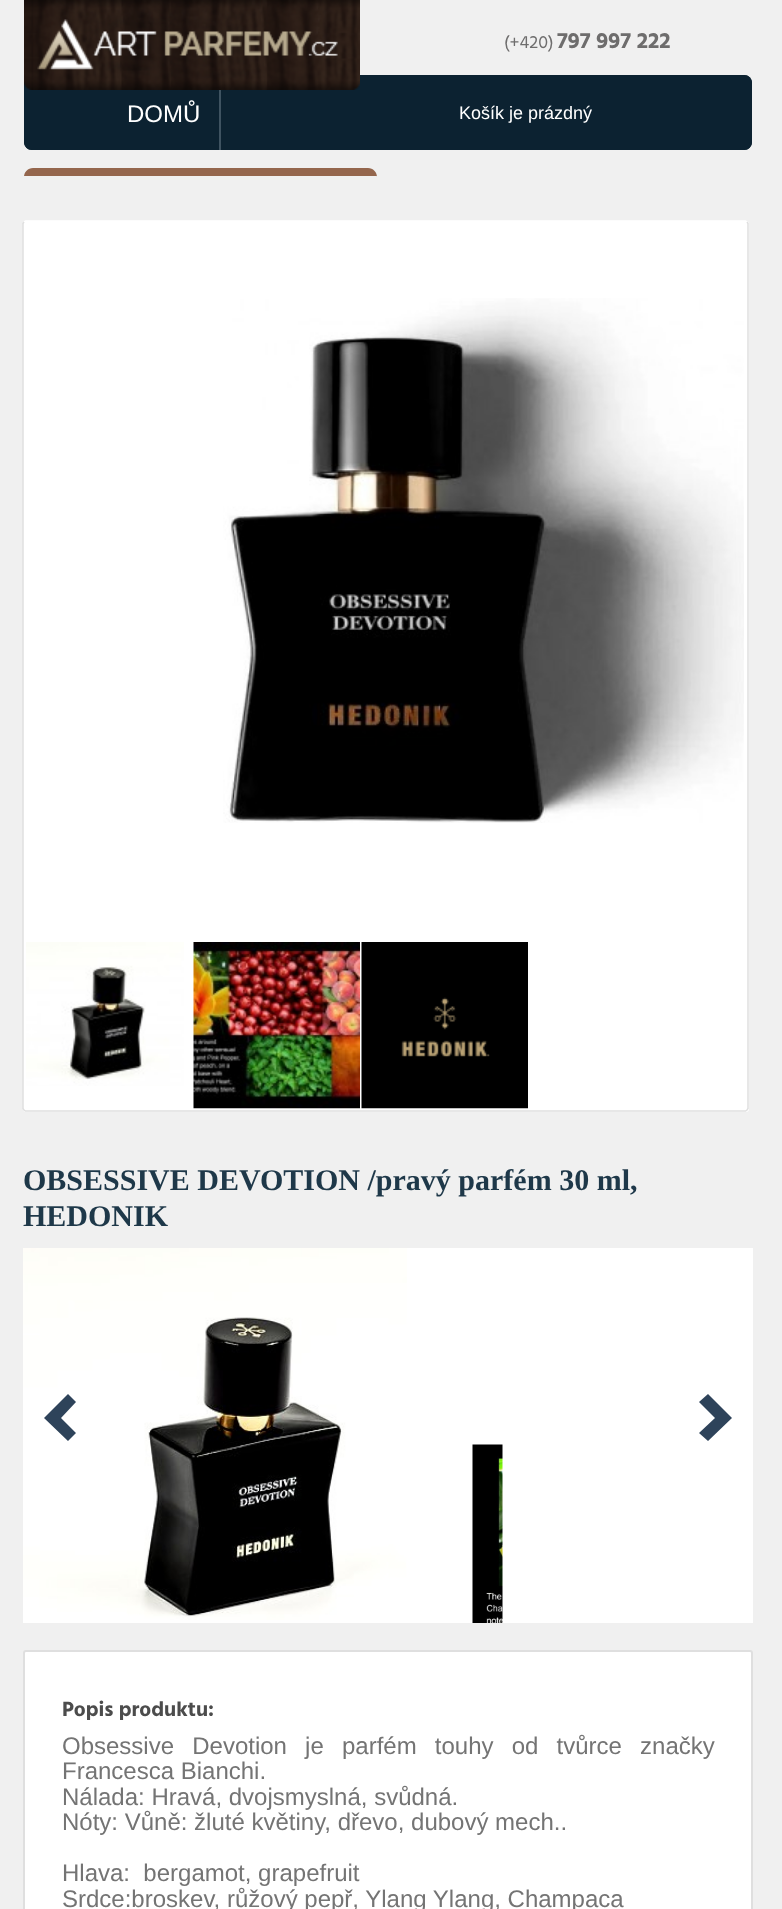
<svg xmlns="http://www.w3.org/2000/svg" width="782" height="1909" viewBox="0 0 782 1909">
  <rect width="100%" height="100%" fill="#f0f0f0"/>
  <rect x="24" y="75" width="728" height="75" rx="8" fill="#0c2231"/>
  <path d="M32 75H221V150H32C27.5 150 24 146.5 24 142V83C24 78.5 27.5 75 32 75Z" fill="#0c2231"/>
  <path d="M300 75H744C748.5 75 752 78.5 752 83V142C752 146.5 748.5 150 744 150H300Z" fill="#0c2231"/>
  <image x="24" y="0" width="336" height="90" href="img1.png"/>
  <text x="504" y="48" font-family="Hind" font-size="18" fill="#6e6d6d">(+420)</text>
  <text x="557" y="48" font-family="Hind" font-size="22.5" font-weight="bold" fill="#6e6d6d">797 997 222</text>
  <rect x="219" y="90" width="2" height="60" fill="#3f5361"/>
  <text x="127" y="122" font-family="Liberation Sans" font-size="24" fill="#ffffff">DOMŮ</text>
  <text x="459" y="119" font-family="Liberation Sans" font-size="18" fill="#ffffff">Košík je prázdný</text>
  <path d="M33 168H368C373 168 377 172 377 177V176H24V177C24 172 28 168 33 168Z" fill="#94664d"/>
  <rect x="23" y="221" width="726" height="891" rx="3" fill="#ffffff"/>
  <path d="M24 222L25.5 221H745.5L747 222" fill="none" stroke="#ffffff" stroke-width="1.5"/>
  <path d="M747 222L748 223.5V1108.5L747 1110L745.5 1111H25.5L24 1110L23 1108.5V223.5L24 222" fill="none" stroke="#dfdfdf" stroke-width="1.5"/>
  <image x="223" y="298" width="521" height="525" href="img2.png"/>
  <image x="26" y="942" width="158" height="144" href="img3.png"/>
  <image x="193" y="942" width="167" height="167" href="img4.png"/>
  <image x="361" y="942" width="167" height="167" href="img5.png"/>
  <text x="23" y="1190" font-family="Liberation Serif" font-size="30" font-weight="bold" fill="#1e3849">OBSESSIVE DEVOTION /pravý parfém 30 ml,</text>
  <text x="23" y="1226" font-family="Liberation Serif" font-size="30" font-weight="bold" fill="#1e3849">HEDONIK</text>
  <rect x="23" y="1248" width="730" height="375" fill="#ffffff"/>
  <image x="23" y="1248" width="384" height="372" href="img6.png"/>
  <image x="472" y="1444" width="31" height="179" href="img7.png"/>
  <path d="M68 1394L76 1402L61 1418L76 1433L68 1441L44 1418Z" fill="#2e435a"/>
  <path d="M708 1441L699 1433L715 1418L699 1402L708 1394L732 1418Z" fill="#2e435a"/>
  <rect x="24" y="1651" width="728" height="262" rx="2" fill="#ffffff" stroke="#dfdfdf" stroke-width="2"/>
  <text x="62" y="1716" font-family="Hind" font-size="21" font-weight="bold" fill="#4c4c4c">Popis produktu:</text>
  <text x="62" y="1754" word-spacing="11.5" font-family="Liberation Sans" font-size="24" fill="#747474">Obsessive Devotion je parfém touhy od tvůrce značky</text>
  <text x="62" y="1779" font-family="Liberation Sans" font-size="24" fill="#747474">Francesca Bianchi.</text>
  <text x="62" y="1805" font-family="Liberation Sans" font-size="24" fill="#747474">Nálada: Hravá, dvojsmyslná, svůdná.</text>
  <text x="62" y="1830" font-family="Liberation Sans" font-size="24" fill="#747474">Nóty: Vůně: žluté květiny, dřevo, dubový mech..</text>
  <text x="62" y="1881" font-family="Liberation Sans" font-size="24" fill="#747474" xml:space="preserve">Hlava:  bergamot, grapefruit</text>
  <text x="62" y="1907" font-family="Liberation Sans" font-size="24" fill="#747474">Srdce:broskev, růžový pepř, Ylang Ylang, Champaca</text>
</svg>
